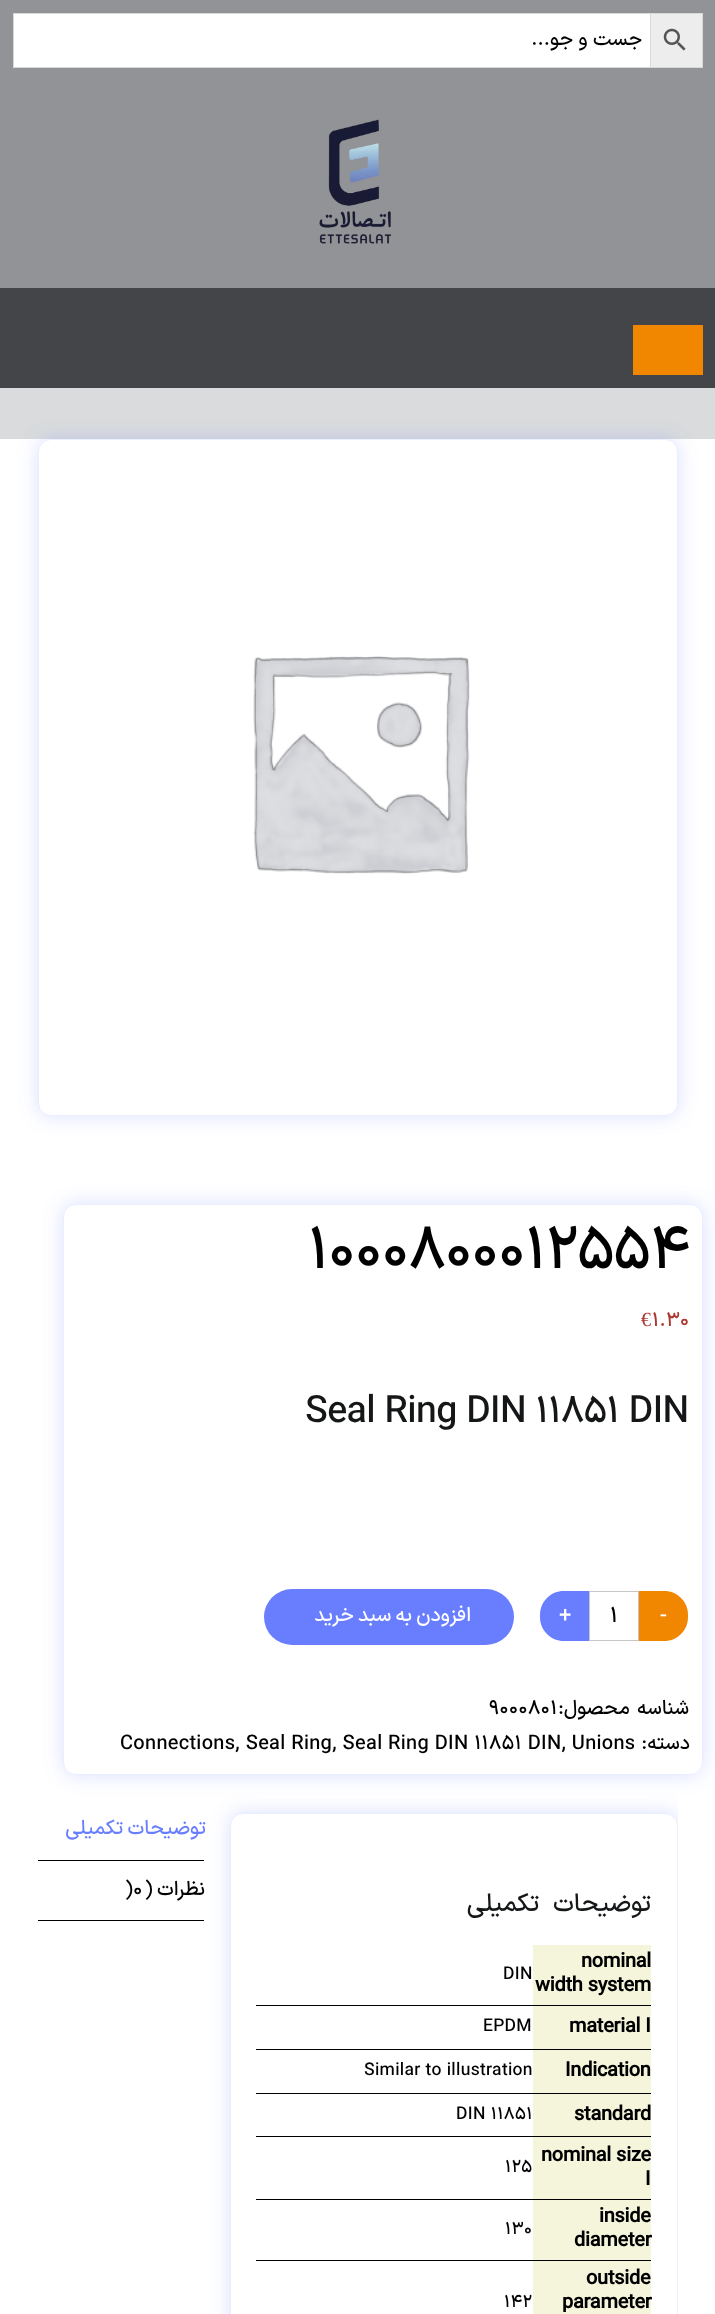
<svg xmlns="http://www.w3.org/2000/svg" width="715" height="2314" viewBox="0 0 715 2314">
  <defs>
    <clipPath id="clip1"><path d="M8 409H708V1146H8ZM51 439H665C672 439 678 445 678 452V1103C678 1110 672 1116 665 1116H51C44 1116 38 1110 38 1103V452C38 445 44 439 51 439Z" clip-rule="evenodd"/></clipPath>
    <filter id="blur1" x="-50%" y="-200%" width="200%" height="500%"><feGaussianBlur stdDeviation="9.5"/></filter>
    <clipPath id="clip2"><path d="M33 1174H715V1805H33ZM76 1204H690C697 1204 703 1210 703 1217V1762C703 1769 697 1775 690 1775H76C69 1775 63 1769 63 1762V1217C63 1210 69 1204 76 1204Z" clip-rule="evenodd"/></clipPath>
    <clipPath id="clip3"><rect x="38" y="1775" width="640" height="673"/></clipPath>
    <clipPath id="clip4"><path d="M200 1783H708V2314H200ZM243 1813H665C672 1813 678 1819 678 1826V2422C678 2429 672 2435 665 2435H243C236 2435 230 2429 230 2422V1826C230 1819 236 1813 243 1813Z" clip-rule="evenodd"/></clipPath>
  </defs>
  <rect width="100%" height="100%" fill="#ffffff"/>
  <rect x="0" y="0" width="715" height="288" fill="#919396"/>
  <rect x="650.5" y="13.5" width="52" height="54" fill="#ededed" stroke="#d8d8d8"/>
  <rect x="13.5" y="13.5" width="637" height="54" fill="#ffffff" stroke="#d8d8d8"/>
  <text x="642" y="45" font-family="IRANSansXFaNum" font-size="20" font-weight="500" direction="rtl" fill="#000000">جست و جو...</text>
  <image x="663" y="28" width="23" height="23" href="img1.png"/>
  <image x="319" y="119" width="73" height="125" href="img2.png"/>
  <rect x="0" y="288" width="715" height="100" fill="#434549"/>
  <rect x="633" y="325" width="70" height="50" fill="#f18701"/>
  <rect x="0" y="388" width="715" height="51" fill="#d9dbdc"/>
  <g clip-path="url(#clip1)">
    <rect x="38" y="439" width="640" height="677" rx="13" fill="#687eff" fill-opacity="0.25" filter="url(#blur1)"/>
  </g>
  <rect x="38.5" y="439.5" width="639" height="676" rx="12.5" fill="none" stroke="#687eff" stroke-opacity="0.13"/>
  <image x="253" y="656" width="217" height="218" href="img3.png"/>
  <g clip-path="url(#clip2)">
    <rect x="63" y="1204" width="640" height="571" rx="13" fill="#687eff" fill-opacity="0.25" filter="url(#blur1)"/>
  </g>
  <rect x="63.5" y="1204.5" width="639" height="570" rx="12.5" fill="none" stroke="#687eff" stroke-opacity="0.13"/>
  <text x="308" y="1268" font-family="IRANSansXFaNum" font-size="60" font-weight="500" letter-spacing="-0.9" fill="#000000">1000800012554</text>
  <text x="641" y="1326" font-family="Liberation Serif" font-size="20" letter-spacing="0.3" fill="#ac3931">€</text>
  <text x="652" y="1326" font-family="IRANSansXFaNum" font-size="20" font-weight="500" letter-spacing="0.3" fill="#ac3931">1.30</text>
  <text x="305" y="1422" font-family="IRANSansXFaNum" font-size="37.5" font-weight="500" letter-spacing="-0.6" fill="#141617">Seal Ring DIN 11851 DIN</text>
  <rect x="264" y="1589" width="250" height="56" rx="28" fill="#687eff"/>
  <text x="471" y="1621" word-spacing="-1" font-family="IRANSansXFaNum" font-size="20" font-weight="500" letter-spacing="0.3" direction="rtl" fill="#ffffff">افزودن به سبد خرید</text>
  <path d="M564 1591H589V1641H564C550.5 1641 540 1630.5 540 1617V1615C540 1601.5 550.5 1591 564 1591Z" fill="#687eff"/>
  <text x="559" y="1622" font-family="IRANSansXFaNum" font-size="22" font-weight="500" fill="#ffffff">+</text>
  <rect x="589.5" y="1591.5" width="49" height="49" fill="none" stroke="#c7c7c7"/>
  <text x="610" y="1622" font-family="IRANSansXFaNum" font-size="22" font-weight="500" fill="#000000">1</text>
  <path d="M639 1591H664C677.5 1591 688 1601.5 688 1615V1617C688 1630.5 677.5 1641 664 1641H639Z" fill="#f18701"/>
  <text x="660" y="1622" font-family="IRANSansXFaNum" font-size="22" font-weight="500" fill="#ffffff">-</text>
  <text x="489" y="1714" font-family="IRANSansXFaNum" font-size="20" font-weight="500" letter-spacing="0.3" fill="#000000">9000801</text>
  <text x="689" y="1714" word-spacing="2" font-family="IRANSansXFaNum" font-size="20" font-weight="500" letter-spacing="0.3" direction="rtl" fill="#000000">شناسه محصول:</text>
  <text x="120" y="1749" font-family="IRANSansXFaNum" font-size="20" font-weight="500" letter-spacing="0.3" fill="#000000">Connections, Seal Ring, Seal Ring DIN 11851 DIN, Unions</text>
  <text x="690" y="1749" font-family="IRANSansXFaNum" font-size="20" font-weight="500" letter-spacing="0.3" direction="rtl" fill="#000000">دسته:</text>
  <rect x="38" y="1860" width="166" height="1" fill="#000000"/>
  <text x="206" y="1834" word-spacing="-1" font-family="IRANSansXFaNum" font-size="20" font-weight="500" letter-spacing="0.3" direction="rtl" fill="#687eff">توضیحات تکمیلی</text>
  <rect x="38" y="1920" width="166" height="1" fill="#000000"/>
  <text x="125" y="1895" font-family="IRANSansXFaNum" font-size="20" font-weight="500" letter-spacing="0.3" fill="#000000">)0</text>
  <text x="205" y="1895" word-spacing="-1" font-family="IRANSansXFaNum" font-size="20" font-weight="500" letter-spacing="0.3" direction="rtl" fill="#000000">نظرات (</text>
  <g clip-path="url(#clip3)">
    <g clip-path="url(#clip4)">
      <rect x="230" y="1813" width="448" height="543" rx="13" fill="#687eff" fill-opacity="0.25" filter="url(#blur1)"/>
    </g>
  </g>
  <rect x="230.5" y="1813.5" width="447" height="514" rx="12.5" fill="none" stroke="#687eff" stroke-opacity="0.13"/>
  <text x="651" y="1911" word-spacing="7" font-family="IRANSansXFaNum" font-size="25" font-weight="500" letter-spacing="-0.4" direction="rtl" fill="#141617">توضیحات تکمیلی</text>
  <rect x="256" y="2005" width="395" height="1" fill="#000000"/>
  <text x="503" y="1979" font-family="IRANSansXFaNum" font-size="17.5" font-weight="500" letter-spacing="0.3" fill="#000000">DIN</text>
  <rect x="533" y="1945" width="118" height="60" fill="#f5f5dc"/>
  <text x="581" y="1967" font-family="IRANSansXFaNum" font-size="20" font-weight="bold" letter-spacing="-0.25" fill="#000000">nominal</text>
  <text x="535" y="1991" font-family="IRANSansXFaNum" font-size="20" font-weight="bold" letter-spacing="-0.25" fill="#000000">width system</text>
  <rect x="256" y="2049" width="395" height="1" fill="#000000"/>
  <text x="483" y="2031" font-family="IRANSansXFaNum" font-size="17.5" font-weight="500" letter-spacing="0.3" fill="#000000">EPDM</text>
  <rect x="533" y="2006" width="118" height="43" fill="#f5f5dc"/>
  <text x="569" y="2032" font-family="IRANSansXFaNum" font-size="20" font-weight="bold" letter-spacing="-0.25" fill="#000000">material I</text>
  <rect x="256" y="2093" width="395" height="1" fill="#000000"/>
  <text x="364" y="2075" font-family="IRANSansXFaNum" font-size="17.5" font-weight="500" letter-spacing="0.3" fill="#000000">Similar to illustration</text>
  <rect x="533" y="2050" width="118" height="43" fill="#f5f5dc"/>
  <text x="565" y="2076" font-family="IRANSansXFaNum" font-size="20" font-weight="bold" letter-spacing="-0.25" fill="#000000">Indication</text>
  <rect x="533" y="2094" width="118" height="105" fill="#f5f5dc"/>
  <rect x="256" y="2136" width="395" height="1" fill="#000000"/>
  <text x="456" y="2119" font-family="IRANSansXFaNum" font-size="17.5" font-weight="500" letter-spacing="0.3" fill="#000000">DIN 11851</text>
  <text x="574" y="2120" font-family="IRANSansXFaNum" font-size="20" font-weight="bold" letter-spacing="-0.25" fill="#000000">standard</text>
  <rect x="256" y="2199" width="395" height="1" fill="#000000"/>
  <text x="505" y="2172" font-family="IRANSansXFaNum" font-size="17.5" font-weight="500" letter-spacing="0.3" fill="#000000">125</text>
  <text x="541" y="2161" font-family="IRANSansXFaNum" font-size="20" font-weight="bold" letter-spacing="-0.25" fill="#000000">nominal size</text>
  <text x="645" y="2185" font-family="IRANSansXFaNum" font-size="20" font-weight="bold" letter-spacing="-0.25" fill="#000000">I</text>
  <rect x="256" y="2260" width="395" height="1" fill="#000000"/>
  <text x="505" y="2234" font-family="IRANSansXFaNum" font-size="17.5" font-weight="500" letter-spacing="0.3" fill="#000000">130</text>
  <rect x="533" y="2200" width="118" height="60" fill="#f5f5dc"/>
  <text x="599" y="2222" font-family="IRANSansXFaNum" font-size="20" font-weight="bold" letter-spacing="-0.25" fill="#000000">inside</text>
  <text x="574" y="2246" font-family="IRANSansXFaNum" font-size="20" font-weight="bold" letter-spacing="-0.25" fill="#000000">diameter</text>
  <text x="504" y="2307" font-family="IRANSansXFaNum" font-size="17.5" font-weight="500" letter-spacing="0.3" fill="#000000">142</text>
  <rect x="533" y="2261" width="118" height="53" fill="#f5f5dc"/>
  <text x="586" y="2284" font-family="IRANSansXFaNum" font-size="20" font-weight="bold" letter-spacing="-0.25" fill="#000000">outside</text>
  <text x="562" y="2308" font-family="IRANSansXFaNum" font-size="20" font-weight="bold" letter-spacing="-0.25" fill="#000000">parameter</text>
</svg>
